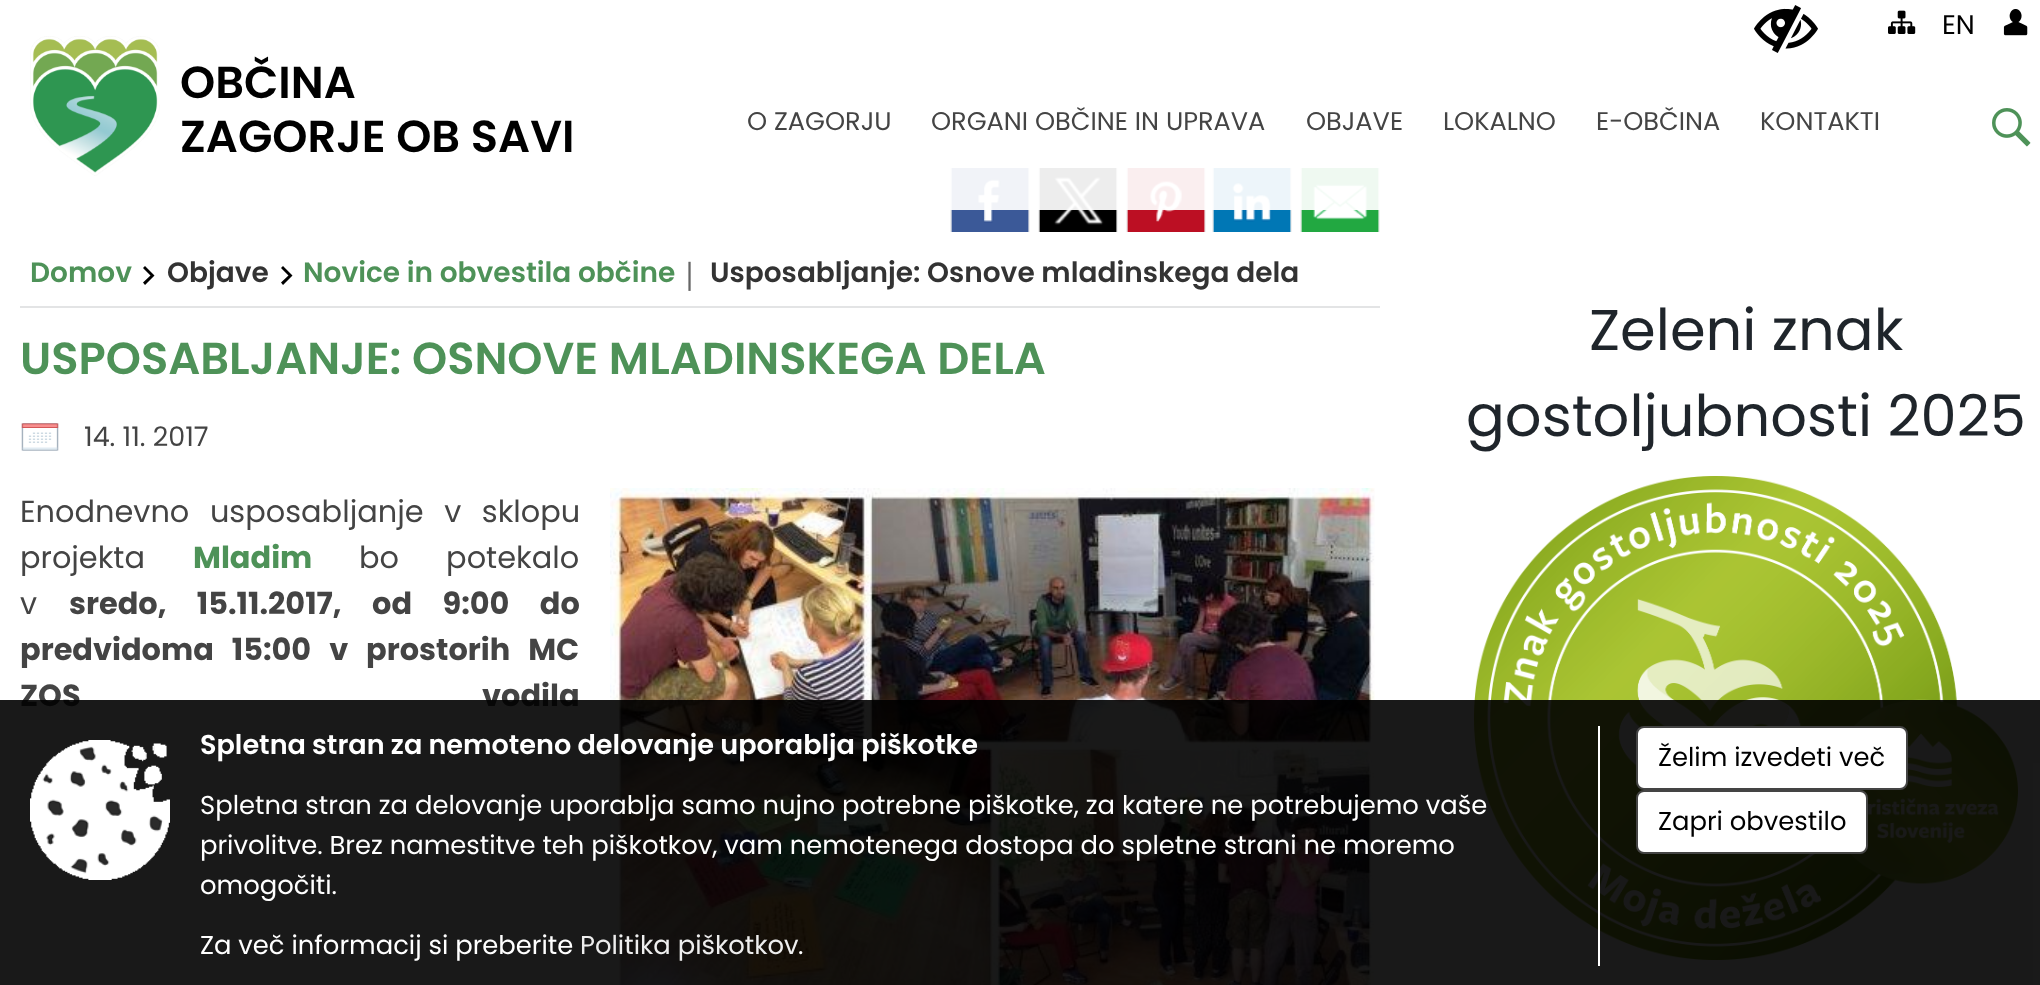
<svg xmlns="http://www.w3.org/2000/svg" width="2040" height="985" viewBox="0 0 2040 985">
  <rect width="100%" height="100%" fill="#ffffff"/>
  <rect x="950" y="168" width="80" height="64" fill="#efefef"/>
  <image x="951" y="168" width="78" height="64" href="img6.png"/>
  <rect x="1038" y="168" width="80" height="64" fill="#efefef"/>
  <image x="1039" y="168" width="78" height="64" href="img7.png"/>
  <rect x="1126" y="168" width="80" height="64" fill="#efefef"/>
  <image x="1127" y="168" width="78" height="64" href="img8.png"/>
  <rect x="1212" y="168" width="80" height="64" fill="#efefef"/>
  <image x="1213" y="168" width="78" height="64" href="img9.png"/>
  <rect x="1300" y="168" width="80" height="64" fill="#efefef"/>
  <image x="1301" y="168" width="78" height="64" href="img10.png"/>
  <rect x="950" y="168" width="430" height="42" fill="#ffffff" fill-opacity="0.93"/>
  <image x="1754" y="5" width="64" height="48" href="img1.png"/>
  <image x="1888" y="10" width="28" height="24" href="img2.png"/>
  <text x="1942" y="34" font-family="Poppins" font-size="27" fill="#000000">EN</text>
  <image x="2003" y="9" width="25" height="27" href="img3.png"/>
  <image x="30" y="36" width="130" height="140" href="img4.png"/>
  <text x="180" y="98" font-family="Poppins" font-size="44.8" font-weight="600" fill="#000000">OBČINA</text>
  <text x="180" y="152" font-family="Poppins" font-size="44.8" font-weight="600" fill="#000000">ZAGORJE OB SAVI</text>
  <text x="747" y="130" font-family="Poppins" font-size="25.6" fill="#444444">O ZAGORJU</text>
  <text x="931" y="130" font-family="Poppins" font-size="25.6" fill="#444444">ORGANI OBČINE IN UPRAVA</text>
  <text x="1306" y="130" font-family="Poppins" font-size="25.6" fill="#444444">OBJAVE</text>
  <text x="1443" y="130" font-family="Poppins" font-size="25.6" fill="#444444">LOKALNO</text>
  <text x="1596" y="130" font-family="Poppins" font-size="25.6" fill="#444444">E-OBČINA</text>
  <text x="1760" y="130" font-family="Poppins" font-size="25.6" fill="#444444">KONTAKTI</text>
  <image x="1992" y="108" width="39" height="39" href="img5.png"/>
  <rect x="20" y="306" width="1360" height="2" fill="#e3e4e5"/>
  <text x="30" y="282" font-family="Poppins" font-size="28" font-weight="600" fill="#4e9258">Domov</text>
  <path d="M143 282.5L150.5 275.5L143 268L145 266L154.5 275.5L145 285Z" fill="#000000"/>
  <text x="167" y="282" font-family="Poppins" font-size="28" font-weight="600" fill="#333333">Objave</text>
  <path d="M281 282.5L288.5 275.5L281 268L283 266L292.5 275.5L283 285Z" fill="#000000"/>
  <text x="303" y="282" font-family="Poppins" font-size="28" font-weight="600" fill="#4e9258">Novice in obvestila občine</text>
  <text x="686" y="284" font-family="Liberation Serif" font-size="32" font-weight="bold" fill="#666666">|</text>
  <text x="710" y="282" font-family="Poppins" font-size="28" font-weight="600" fill="#333333">Usposabljanje: Osnove mladinskega dela</text>
  <text x="20" y="374" font-family="Poppins" font-size="44.8" font-weight="600" fill="#4e9258">USPOSABLJANJE: OSNOVE MLADINSKEGA DELA</text>
  <image x="21" y="423" width="38" height="28" href="img11.png"/>
  <text x="84" y="446" font-family="Poppins" font-size="27" fill="#444444">14. 11. 2017</text>
  <text x="20" y="522" word-spacing="12.5" font-family="Poppins" font-size="30.4" fill="#444444">Enodnevno usposabljanje v sklopu</text>
  <text x="20" y="568" font-family="Poppins" font-size="30.4" fill="#444444">projekta</text>
  <text x="193" y="568" font-family="Poppins" font-size="30.4" font-weight="bold" fill="#4e9258">Mladim</text>
  <text x="359" y="568" word-spacing="39" font-family="Poppins" font-size="30.4" fill="#444444">bo potekalo</text>
  <text x="20" y="614" font-family="Poppins" font-size="30.4" fill="#444444">v</text>
  <text x="69" y="614" word-spacing="24" font-family="Poppins" font-size="30.4" font-weight="bold" fill="#444444">sredo, 15.11.2017, od 9:00 do</text>
  <text x="20" y="660" word-spacing="11.5" font-family="Poppins" font-size="30.4" font-weight="bold" fill="#444444">predvidoma 15:00 v prostorih MC</text>
  <text x="20" y="706" font-family="Poppins" font-size="30.4" font-weight="bold" fill="#444444">ZOS</text>
  <text x="482" y="706" font-family="Poppins" font-size="30.4" font-weight="bold" fill="#444444">vodila</text>
  <image x="610" y="488" width="765" height="497" href="img12.png"/>
  <text x="1589" y="350" font-family="Poppins" font-size="57.5" fill="#1f252b">Zeleni znak</text>
  <text x="1466" y="436" font-family="Poppins" font-size="57.5" fill="#1f252b">gostoljubnosti 2025</text>
  <image x="1474" y="476" width="544" height="484" href="img13.png"/>
  <rect x="0" y="700" width="2040" height="285" fill="#000000" fill-opacity="0.9"/>
  <image x="30" y="740" width="140" height="140" href="img14.png"/>
  <rect x="1598" y="726" width="2" height="240" fill="#ffffff"/>
  <text x="200" y="754" word-spacing="-0.25" font-family="Poppins" font-size="27.1" font-weight="600" fill="#ffffff">Spletna stran za nemoteno delovanje uporablja piškotke</text>
  <text x="200" y="814" font-family="Poppins" font-size="25.85" fill="#ffffff">Spletna stran za delovanje uporablja samo nujno potrebne piškotke, za katere ne potrebujemo vaše</text>
  <text x="200" y="854" font-family="Poppins" font-size="25.85" fill="#ffffff">privolitve. Brez namestitve teh piškotkov, vam nemotenega dostopa do spletne strani ne moremo</text>
  <text x="200" y="894" font-family="Poppins" font-size="25.85" fill="#ffffff">omogočiti.</text>
  <text x="200" y="954" font-family="Poppins" font-size="25.85" fill="#ffffff">Za več informacij si preberite</text>
  <text x="580" y="954" font-family="Poppins" font-size="25.85" fill="#eeeeee">Politika piškotkov</text>
  <text x="798" y="954" font-family="Poppins" font-size="25.85" fill="#ffffff">.</text>
  <rect x="1637" y="727" width="270" height="62" rx="7" fill="#ffffff" stroke="#444444" stroke-width="2"/>
  <text x="1658" y="766" font-family="Poppins" font-size="25.85" fill="#000000">Želim izvedeti več</text>
  <rect x="1637" y="791" width="230" height="62" rx="7" fill="#ffffff" stroke="#444444" stroke-width="2"/>
  <text x="1658" y="830" font-family="Poppins" font-size="25.85" fill="#000000">Zapri obvestilo</text>
</svg>
